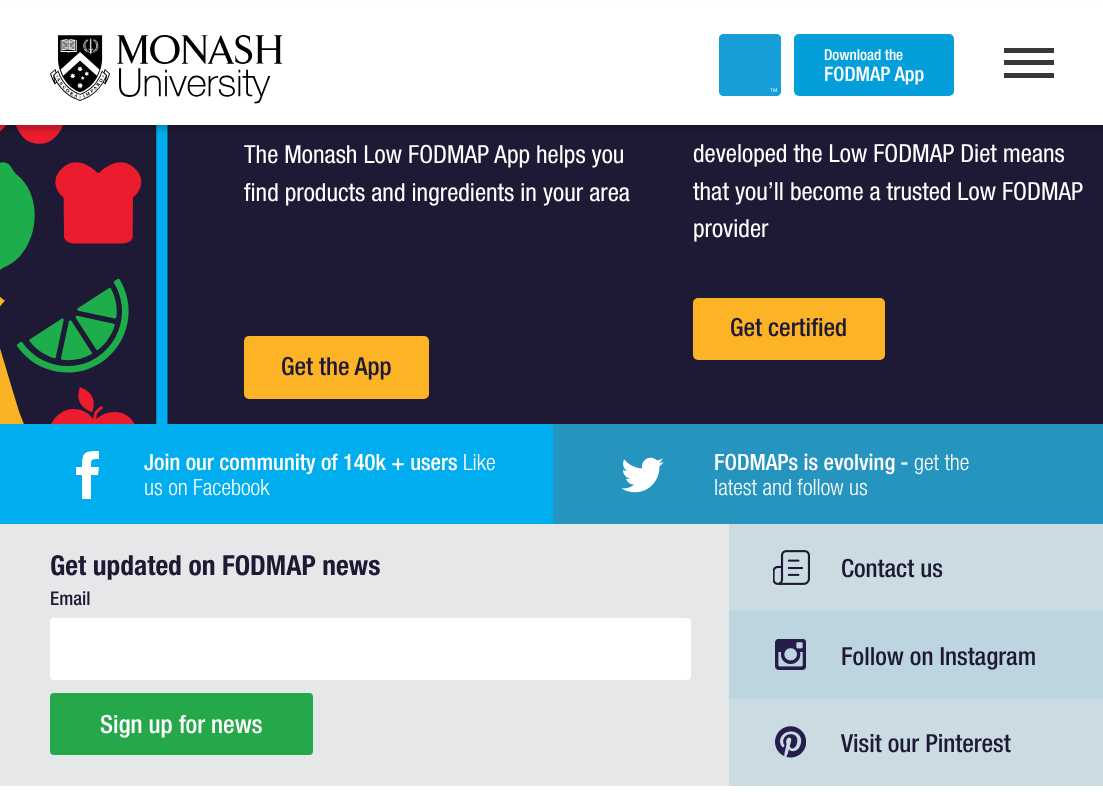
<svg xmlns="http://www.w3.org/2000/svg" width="1103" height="796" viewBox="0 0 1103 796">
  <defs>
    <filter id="blur1" x="-50%" y="-200%" width="200%" height="500%"><feGaussianBlur stdDeviation="2.5"/></filter>
  </defs>
  <rect width="100%" height="100%" fill="#ffffff"/>
  <rect x="0" y="125" width="1103" height="299" fill="#1e1934"/>
  <image x="0" y="125" width="168" height="299" href="img3.png"/>
  <rect x="0" y="5" width="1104" height="125" fill="#000000" fill-opacity="0.2" filter="url(#blur1)"/>
  <rect x="0" y="1" width="1103" height="124" fill="#ffffff"/>
  <image x="50" y="35" width="233" height="69" href="img1.png"/>
  <image x="719" y="34" width="62" height="62" href="img2.png"/>
  <rect x="794" y="34" width="160" height="62" rx="5" fill="#049fda"/>
  <text x="824" y="60" font-family="'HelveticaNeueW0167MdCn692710'" font-size="15" fill="#ffffff">Download the</text>
  <text x="824" y="81" font-family="'HelveticaNeueW0167MdCn692710'" font-size="20" fill="#ffffff">FODMAP App</text>
  <rect x="1004" y="48" width="50" height="5" fill="#383838"/>
  <rect x="1004" y="60" width="50" height="5" fill="#383838"/>
  <rect x="1004" y="73" width="50" height="5" fill="#383838"/>
  <text x="244" y="163" font-family="'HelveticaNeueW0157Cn'" font-size="25" fill="#ffffff">The Monash Low FODMAP App helps you</text>
  <text x="244" y="201" font-family="'HelveticaNeueW0157Cn'" font-size="25" fill="#ffffff">find products and ingredients in your area</text>
  <rect x="244" y="336" width="185" height="63" rx="5" fill="#fcb426"/>
  <text x="281" y="375" font-family="'HelveticaNeueW0167MdCn692710'" font-size="25" fill="#1e1934">Get the App</text>
  <text x="693" y="162" font-family="'HelveticaNeueW0157Cn'" font-size="25" fill="#ffffff">developed the Low FODMAP Diet means</text>
  <text x="693" y="200" font-family="'HelveticaNeueW0157Cn'" font-size="25" fill="#ffffff">that you’ll become a trusted Low FODMAP</text>
  <text x="693" y="237" font-family="'HelveticaNeueW0157Cn'" font-size="25" fill="#ffffff">provider</text>
  <rect x="693" y="298" width="192" height="62" rx="5" fill="#fcb426"/>
  <text x="730" y="336" font-family="'HelveticaNeueW0167MdCn692710'" font-size="25" fill="#1e1934">Get certified</text>
  <rect x="0" y="424" width="553" height="100" fill="#00aeef"/>
  <path d="M91 499H82V475H76V467H82C82 452 84 451 99 451V459C91 459 91 459 91 467H99L98 475H91Z" fill="#ffffff"/>
  <text x="144" y="470" font-family="'HelveticaNeueW0167MdCn692710'" font-size="22.5" fill="#ffffff">Join our community of 140k + users</text>
  <text x="463" y="470" font-family="'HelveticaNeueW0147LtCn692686'" font-size="22.5" fill="#ffffff">Like</text>
  <text x="144" y="495" font-family="'HelveticaNeueW0147LtCn692686'" font-size="22.5" fill="#ffffff">us on Facebook</text>
  <rect x="553" y="424" width="550" height="100" fill="#2594be"/>
  <image x="621" y="457" width="43" height="36" href="img4.png"/>
  <text x="714" y="470" font-family="'HelveticaNeueW0167MdCn692710'" font-size="22.5" fill="#ffffff">FODMAPs is evolving -</text>
  <text x="914" y="470" font-family="'HelveticaNeueW0147LtCn692686'" font-size="22.5" fill="#ffffff">get the</text>
  <text x="714" y="495" font-family="'HelveticaNeueW0147LtCn692686'" font-size="22.5" fill="#ffffff">latest and follow us</text>
  <rect x="0" y="524" width="729" height="262" fill="#e6e7e8"/>
  <text x="50" y="575" font-family="'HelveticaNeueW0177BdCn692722'" font-size="27.5" fill="#1e1934">Get updated on FODMAP news</text>
  <text x="50" y="605" font-family="'HelveticaNeueW0167MdCn692710'" font-size="19" fill="#1e1934">Email</text>
  <rect x="50" y="618" width="641" height="62" rx="4" fill="#ffffff"/>
  <rect x="50" y="693" width="263" height="62" rx="4" fill="#25a84a"/>
  <text x="100" y="733" font-family="'HelveticaNeueW0167MdCn692710'" font-size="25" fill="#ffffff">Sign up for news</text>
  <rect x="729" y="524" width="374" height="87" fill="#cbdbe2"/>
  <image x="773" y="550" width="37" height="35" href="img5.png"/>
  <text x="841" y="577" font-family="'HelveticaNeueW0167MdCn692710'" font-size="25" fill="#1e1934">Contact us</text>
  <rect x="729" y="611" width="374" height="88" fill="#bdd5df"/>
  <image x="775" y="639" width="31" height="31" href="img6.png"/>
  <text x="841" y="665" font-family="'HelveticaNeueW0167MdCn692710'" font-size="25" fill="#1e1934">Follow on Instagram</text>
  <rect x="729" y="699" width="374" height="87" fill="#cbdbe2"/>
  <image x="775" y="726" width="31" height="32" href="img7.png"/>
  <text x="841" y="752" font-family="'HelveticaNeueW0167MdCn692710'" font-size="25" fill="#1e1934">Visit our Pinterest</text>
</svg>
